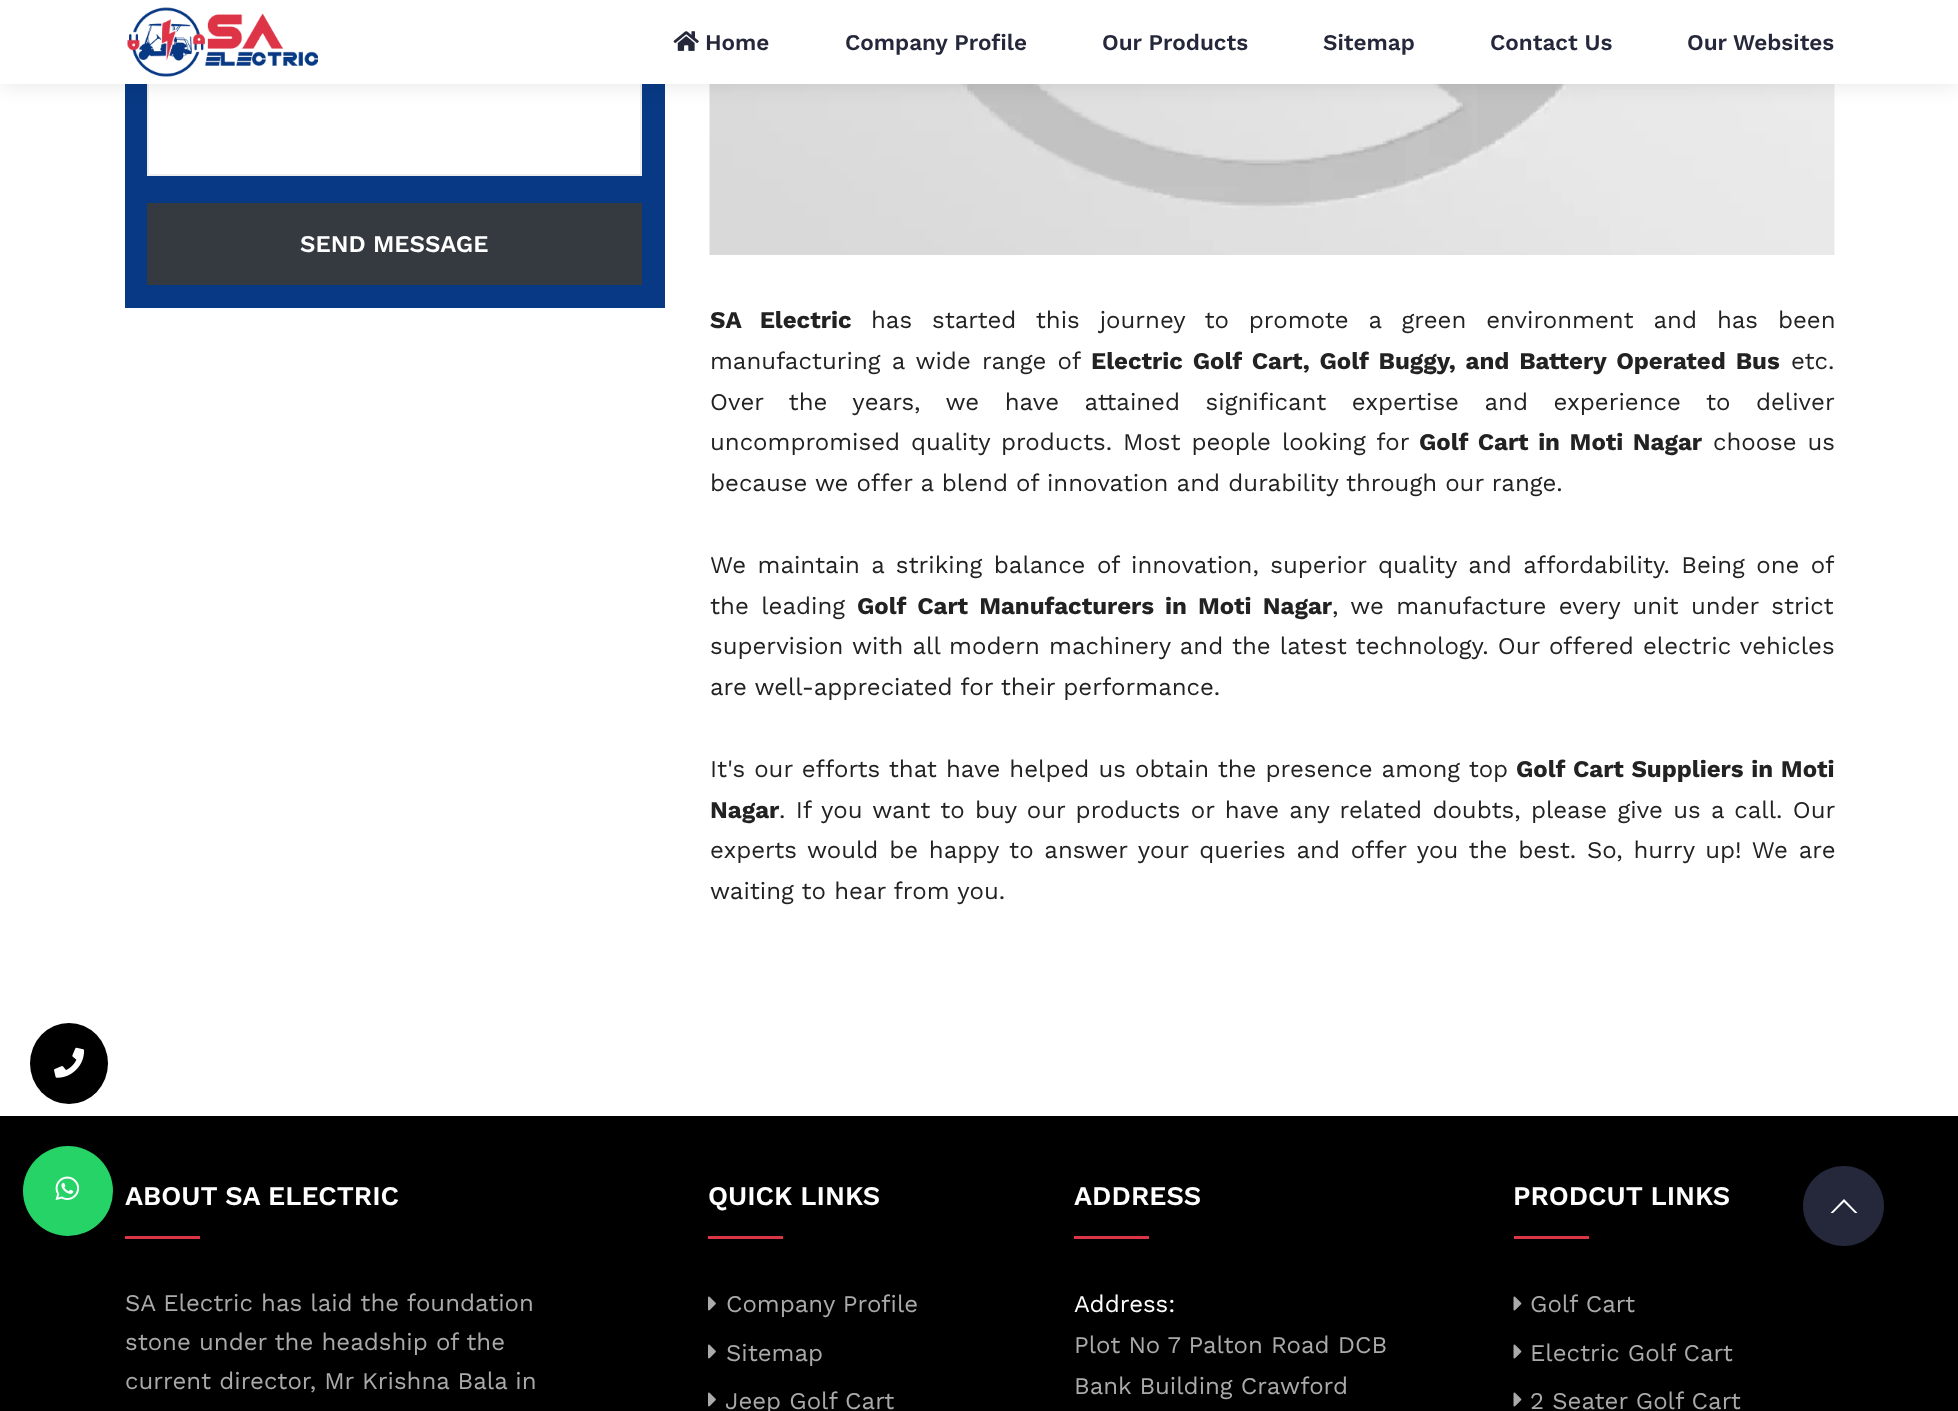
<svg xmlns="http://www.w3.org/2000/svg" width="1958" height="1411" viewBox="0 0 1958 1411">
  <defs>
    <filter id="blur1" x="-50%" y="-200%" width="200%" height="500%"><feGaussianBlur stdDeviation="11"/></filter>
  </defs>
  <rect width="100%" height="100%" fill="#ffffff"/>
  <ellipse cx="69" cy="1063.5" rx="39" ry="40.5" fill="#000000"/>
  <image x="54" y="1047" width="31" height="31" href="img1.png"/>
  <rect x="125" y="84" width="540" height="224" fill="#073984"/>
  <rect x="149" y="84" width="491" height="90" fill="#ffffff"/>
  <rect x="148" y="-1" width="493" height="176" fill="none" stroke="#eeeeee" stroke-width="2"/>
  <image x="709" y="84" width="1126" height="171" href="img4.png"/>
  <rect x="0" y="0" width="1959" height="84" fill="#000000" fill-opacity="0.1" filter="url(#blur1)"/>
  <rect x="0" y="0" width="1958" height="84" fill="#ffffff"/>
  <image x="127" y="7" width="191" height="70" href="img2.png"/>
  <image x="673" y="31" width="26" height="20" href="img3.png"/>
  <text x="705" y="50" font-family="Work Sans" font-size="22.5" font-weight="600" fill="#25283a">Home</text>
  <text x="845" y="50" font-family="Work Sans" font-size="22.5" font-weight="600" fill="#25283a">Company Profile</text>
  <text x="1102" y="50" font-family="Work Sans" font-size="22.5" font-weight="600" fill="#25283a">Our Products</text>
  <text x="1323" y="50" font-family="Work Sans" font-size="22.5" font-weight="600" fill="#25283a">Sitemap</text>
  <text x="1490" y="50" font-family="Work Sans" font-size="22.5" font-weight="600" fill="#25283a">Contact Us</text>
  <text x="1687" y="50" font-family="Work Sans" font-size="22.5" font-weight="600" fill="#25283a">Our Websites</text>
  <rect x="147" y="203" width="495" height="82" fill="#343a40"/>
  <text x="300" y="252" font-family="Work Sans" font-size="24" font-weight="600" fill="#ffffff">SEND MESSAGE</text>
  <text x="710" y="328" word-spacing="11.75" font-family="Work Sans" font-size="24" font-weight="bold" fill="#222222">SA Electric</text>
  <text x="871" y="328" word-spacing="11.75" font-family="Work Sans" font-size="24" fill="#222222">has started this journey to promote a green environment and has been</text>
  <text x="710" y="369" word-spacing="3" font-family="Work Sans" font-size="24" fill="#222222">manufacturing a wide range of</text>
  <text x="1091" y="369" word-spacing="3" font-family="Work Sans" font-size="24" font-weight="bold" fill="#222222">Electric Golf Cart, Golf Buggy, and Battery Operated Bus</text>
  <text x="1791" y="369" font-family="Work Sans" font-size="24" fill="#222222">etc.</text>
  <text x="710" y="410" word-spacing="17.4" font-family="Work Sans" font-size="24" fill="#222222">Over the years, we have attained significant expertise and experience to deliver</text>
  <text x="710" y="450" word-spacing="2.75" font-family="Work Sans" font-size="24" fill="#222222">uncompromised quality products. Most people looking for</text>
  <text x="1419" y="450" word-spacing="2.75" font-family="Work Sans" font-size="24" font-weight="bold" fill="#222222">Golf Cart in Moti Nagar</text>
  <text x="1713" y="450" word-spacing="2.75" font-family="Work Sans" font-size="24" fill="#222222">choose us</text>
  <text x="710" y="491" font-family="Work Sans" font-size="24" fill="#222222">because we offer a blend of innovation and durability through our range.</text>
  <text x="710" y="573" word-spacing="3.25" font-family="Work Sans" font-size="24" fill="#222222">We maintain a striking balance of innovation, superior quality and affordability. Being one of</text>
  <text x="710" y="614" word-spacing="4.25" font-family="Work Sans" font-size="24" fill="#222222">the leading</text>
  <text x="857" y="614" word-spacing="4.25" font-family="Work Sans" font-size="24" font-weight="bold" fill="#222222">Golf Cart Manufacturers in Moti Nagar</text>
  <text x="1332" y="614" word-spacing="4.25" font-family="Work Sans" font-size="24" fill="#222222">, we manufacture every unit under strict</text>
  <text x="710" y="654" word-spacing="1" font-family="Work Sans" font-size="24" fill="#222222">supervision with all modern machinery and the latest technology. Our offered electric vehicles</text>
  <text x="710" y="695" font-family="Work Sans" font-size="24" fill="#222222">are well-appreciated for their performance.</text>
  <text x="710" y="777" word-spacing="0.9" font-family="Work Sans" font-size="24" fill="#222222">It's our efforts that have helped us obtain the presence among top</text>
  <text x="1516" y="777" word-spacing="0.9" font-family="Work Sans" font-size="24" font-weight="bold" fill="#222222">Golf Cart Suppliers in Moti</text>
  <text x="710" y="818" font-family="Work Sans" font-size="24" font-weight="bold" fill="#222222">Nagar</text>
  <text x="779" y="818" word-spacing="2.1" font-family="Work Sans" font-size="24" fill="#222222">. If you want to buy our products or have any related doubts, please give us a call. Our</text>
  <text x="710" y="858" word-spacing="2.6" font-family="Work Sans" font-size="24" fill="#222222">experts would be happy to answer your queries and offer you the best. So, hurry up! We are</text>
  <text x="710" y="899" font-family="Work Sans" font-size="24" fill="#222222">waiting to hear from you.</text>
  <rect x="0" y="1116" width="1958" height="295" fill="#000000"/>
  <text x="125" y="1205" font-family="Work Sans" font-size="27" font-weight="600" fill="#ffffff">ABOUT SA ELECTRIC</text>
  <rect x="125" y="1236" width="75" height="3" fill="#dc3546"/>
  <text x="125" y="1311" font-family="Work Sans" font-size="24" fill="#aaaaaa">SA Electric has laid the foundation</text>
  <text x="125" y="1350" font-family="Work Sans" font-size="24" fill="#aaaaaa">stone under the headship of the</text>
  <text x="125" y="1389" font-family="Work Sans" font-size="24" fill="#aaaaaa">current director, Mr Krishna Bala in</text>
  <text x="708" y="1205" font-family="Work Sans" font-size="27" font-weight="600" fill="#ffffff">QUICK LINKS</text>
  <rect x="708" y="1236" width="75" height="3" fill="#dc3546"/>
  <image x="708" y="1296" width="8" height="15" href="img5.png"/>
  <text x="726" y="1312" font-family="Work Sans" font-size="24" fill="#aaaaaa">Company Profile</text>
  <image x="708" y="1344" width="8" height="15" href="img5.png"/>
  <text x="726" y="1361" font-family="Work Sans" font-size="24" fill="#aaaaaa">Sitemap</text>
  <image x="708" y="1392" width="8" height="15" href="img5.png"/>
  <text x="725" y="1409" font-family="Work Sans" font-size="24" fill="#aaaaaa">Jeep Golf Cart</text>
  <text x="1074" y="1205" font-family="Work Sans" font-size="27" font-weight="600" fill="#ffffff">ADDRESS</text>
  <rect x="1074" y="1236" width="75" height="3" fill="#dc3546"/>
  <text x="1074" y="1312" font-family="Work Sans" font-size="24" fill="#ffffff">Address:</text>
  <text x="1074" y="1353" font-family="Work Sans" font-size="24" fill="#aaaaaa">Plot No 7 Palton Road DCB</text>
  <text x="1074" y="1394" font-family="Work Sans" font-size="24" fill="#aaaaaa">Bank Building Crawford</text>
  <text x="1513" y="1205" font-family="Work Sans" font-size="27" font-weight="600" fill="#ffffff">PRODCUT LINKS</text>
  <rect x="1514" y="1236" width="75" height="3" fill="#dc3546"/>
  <image x="1513" y="1296" width="9" height="15" href="img6.png"/>
  <text x="1530" y="1312" font-family="Work Sans" font-size="24" fill="#aaaaaa">Golf Cart</text>
  <image x="1513" y="1344" width="9" height="15" href="img6.png"/>
  <text x="1530" y="1361" font-family="Work Sans" font-size="24" fill="#aaaaaa">Electric Golf Cart</text>
  <image x="1513" y="1392" width="9" height="15" href="img6.png"/>
  <text x="1530" y="1409" font-family="Work Sans" font-size="24" fill="#aaaaaa">2 Seater Golf Cart</text>
  <circle cx="68" cy="1191" r="45" fill="#25d366"/>
  <image x="55" y="1176" width="25" height="25" href="img7.png"/>
  <path d="M1803 1206C1803 1184 1821 1166 1844 1166C1866 1166 1884 1184 1884 1206C1884 1228 1866 1246 1844 1246C1821 1246 1803 1228 1803 1206Z" fill="#25283a"/>
  <path d="M1844 1202L1833 1213H1830.5L1844 1199L1857.5 1213H1855Z" fill="#ffffff"/>
</svg>
